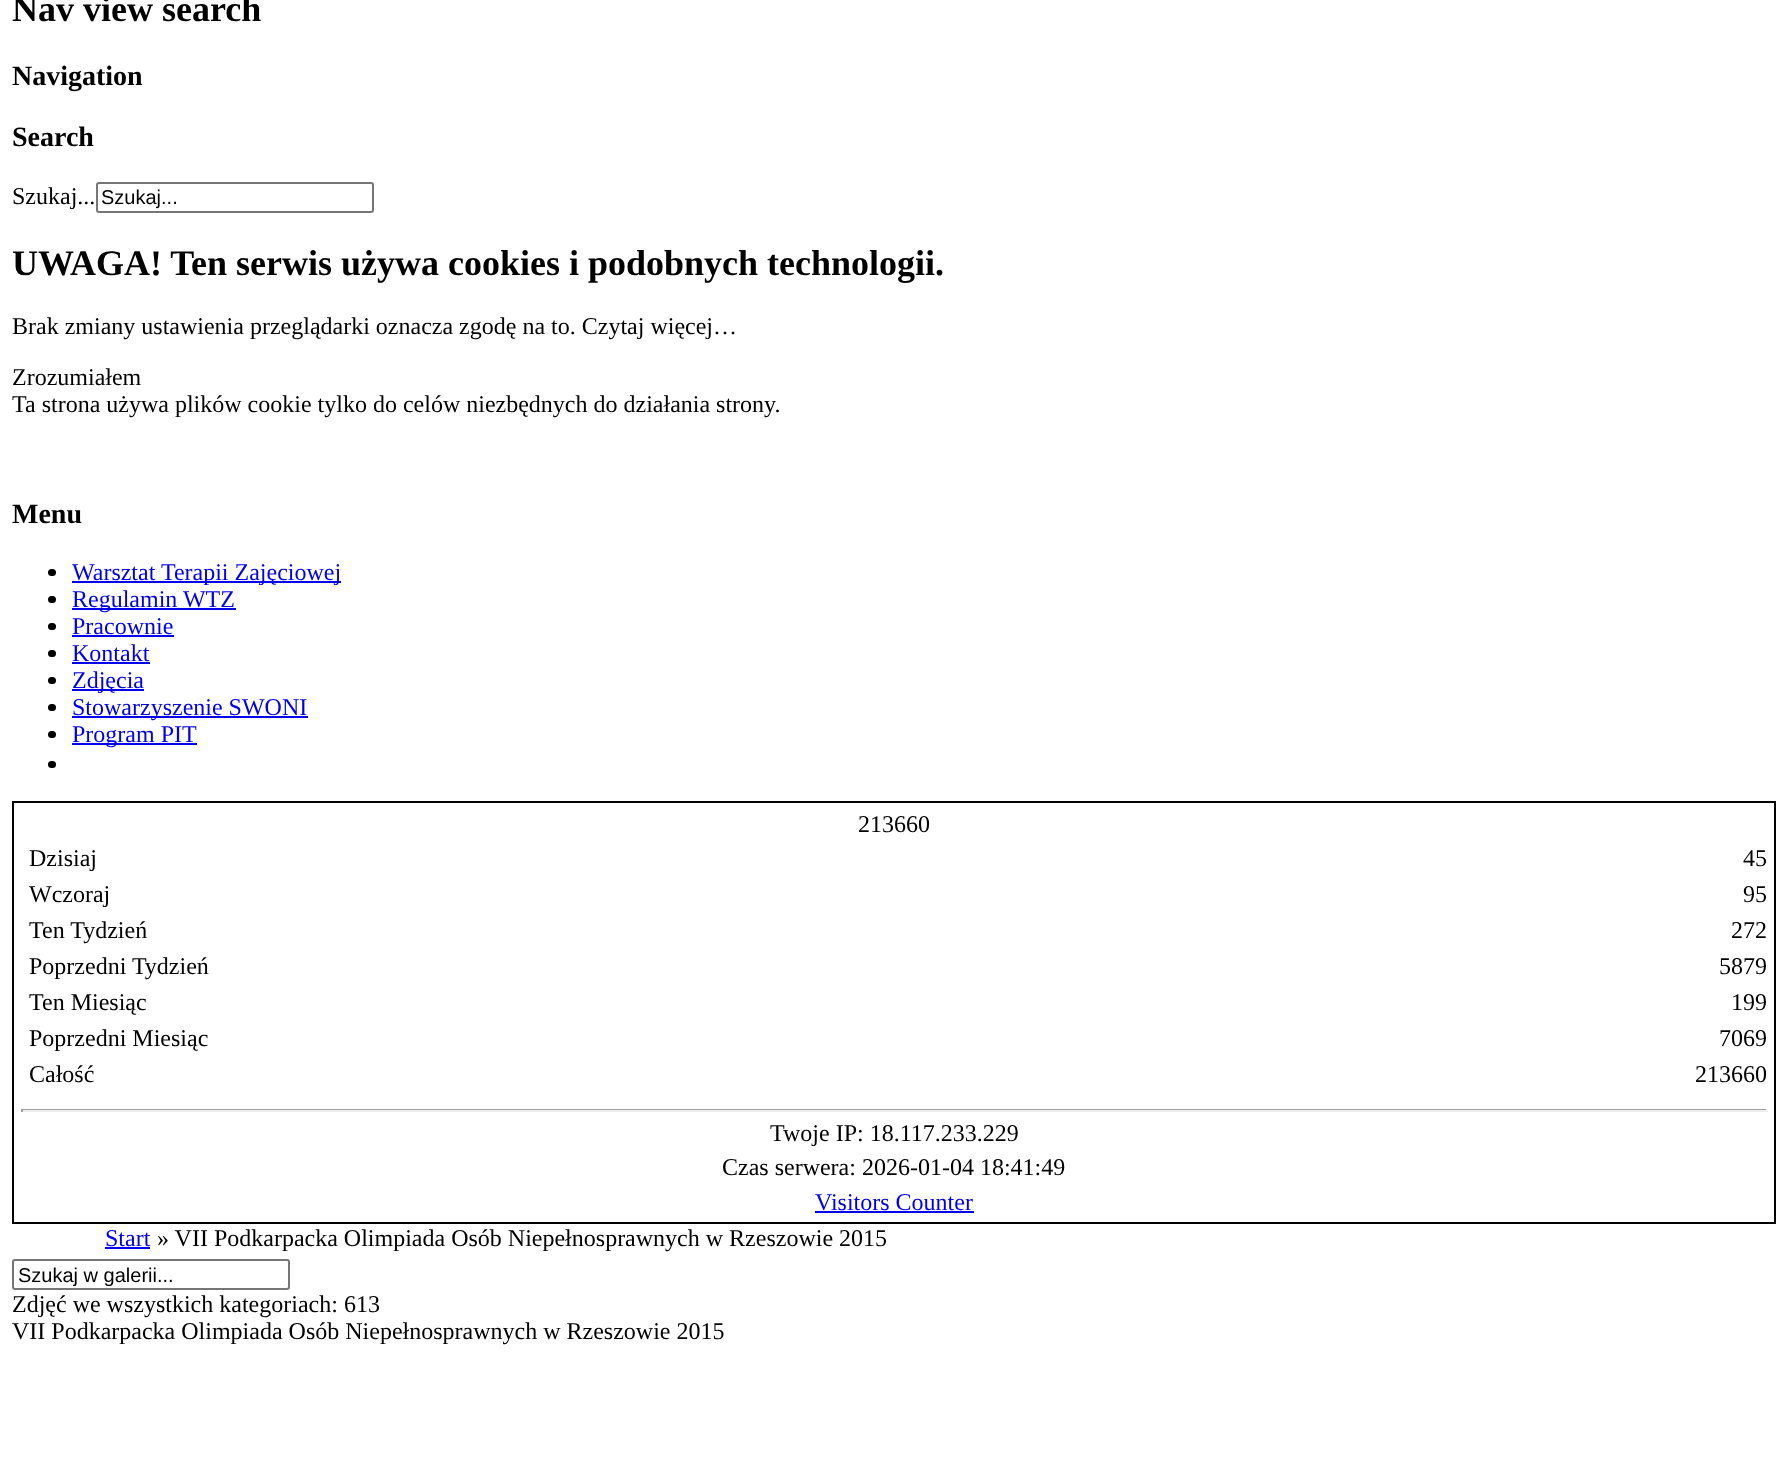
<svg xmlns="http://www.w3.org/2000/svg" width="1787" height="1479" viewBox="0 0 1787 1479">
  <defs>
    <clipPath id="clip1"><rect x="18" y="1263" width="266" height="23"/></clipPath>
  </defs>
  <rect width="100%" height="100%" fill="#ffffff"/>
  <text x="12" y="21" font-family="Liberation Serif" font-size="36" font-weight="bold" fill="#000000">Nav view search</text>
  <text x="12" y="85" font-family="Liberation Serif" font-size="28" font-weight="bold" fill="#000000">Navigation</text>
  <text x="12" y="146" font-family="Liberation Serif" font-size="28" font-weight="bold" fill="#000000">Search</text>
  <text x="12" y="204" font-family="Liberation Serif" font-size="24" fill="#000000">Szukaj...</text>
  <rect x="97" y="183" width="276" height="29" rx="2" fill="none" stroke="#767676" stroke-width="2"/>
  <text x="101" y="204" font-family="Liberation Sans" font-size="20" fill="#000000">Szukaj...</text>
  <text x="12" y="275" font-family="Liberation Serif" font-size="36" font-weight="bold" fill="#000000">UWAGA! Ten serwis używa cookies i podobnych technologii.</text>
  <text x="12" y="334" font-family="Liberation Serif" font-size="24" fill="#000000">Brak zmiany ustawienia przeglądarki oznacza zgodę na to. Czytaj więcej…</text>
  <text x="12" y="385" font-family="Liberation Serif" font-size="24" fill="#000000">Zrozumiałem</text>
  <text x="12" y="412" font-family="Liberation Serif" font-size="24" fill="#000000">Ta strona używa plików cookie tylko do celów niezbędnych do działania strony.</text>
  <text x="12" y="523" font-family="Liberation Serif" font-size="28" font-weight="bold" fill="#000000">Menu</text>
  <rect x="48" y="569" width="8" height="7" rx="3.5" fill="#000000"/>
  <rect x="72" y="581" width="269" height="2" fill="#0000ee"/>
  <text x="72" y="580" font-family="Liberation Serif" font-size="24" fill="#0000ee">Warsztat Terapii Zajęciowej</text>
  <rect x="48" y="596" width="8" height="7" rx="3.5" fill="#000000"/>
  <rect x="72" y="608" width="164" height="2" fill="#0000ee"/>
  <text x="72" y="607" font-family="Liberation Serif" font-size="24" fill="#0000ee">Regulamin WTZ</text>
  <rect x="48" y="623" width="8" height="7" rx="3.5" fill="#000000"/>
  <text x="72" y="634" font-family="Liberation Serif" font-size="24" fill="#0000ee">Pracownie</text>
  <rect x="72" y="635" width="102" height="2" fill="#0000ee"/>
  <rect x="48" y="650" width="8" height="7" rx="3.5" fill="#000000"/>
  <text x="72" y="661" font-family="Liberation Serif" font-size="24" fill="#0000ee">Kontakt</text>
  <rect x="72" y="662" width="78" height="2" fill="#0000ee"/>
  <rect x="48" y="677" width="8" height="7" rx="3.5" fill="#000000"/>
  <rect x="72" y="689" width="72" height="2" fill="#0000ee"/>
  <text x="72" y="688" font-family="Liberation Serif" font-size="24" fill="#0000ee">Zdjęcia</text>
  <rect x="48" y="704" width="8" height="7" rx="3.5" fill="#000000"/>
  <rect x="72" y="716" width="236" height="2" fill="#0000ee"/>
  <text x="72" y="715" font-family="Liberation Serif" font-size="24" fill="#0000ee">Stowarzyszenie SWONI</text>
  <rect x="48" y="731" width="8" height="7" rx="3.5" fill="#000000"/>
  <rect x="72" y="743" width="125" height="2" fill="#0000ee"/>
  <text x="72" y="742" font-family="Liberation Serif" font-size="24" fill="#0000ee">Program PIT</text>
  <rect x="48" y="761" width="8" height="7" rx="3.5" fill="#000000"/>
  <rect x="13" y="802" width="1762" height="421" fill="none" stroke="#000000" stroke-width="2"/>
  <text x="858" y="832" font-family="Liberation Serif" font-size="24" fill="#000000">213660</text>
  <text x="29" y="866" font-family="Liberation Serif" font-size="24" fill="#000000">Dzisiaj</text>
  <text x="29" y="902" font-family="Liberation Serif" font-size="24" fill="#000000">Wczoraj</text>
  <text x="29" y="938" font-family="Liberation Serif" font-size="24" fill="#000000">Ten Tydzień</text>
  <text x="29" y="974" font-family="Liberation Serif" font-size="24" fill="#000000">Poprzedni Tydzień</text>
  <text x="29" y="1010" font-family="Liberation Serif" font-size="24" fill="#000000">Ten Miesiąc</text>
  <text x="29" y="1046" font-family="Liberation Serif" font-size="24" fill="#000000">Poprzedni Miesiąc</text>
  <text x="29" y="1082" font-family="Liberation Serif" font-size="24" fill="#000000">Całość</text>
  <text x="1743" y="866" font-family="Liberation Serif" font-size="24" fill="#000000">45</text>
  <text x="1743" y="902" font-family="Liberation Serif" font-size="24" fill="#000000">95</text>
  <text x="1731" y="938" font-family="Liberation Serif" font-size="24" fill="#000000">272</text>
  <text x="1719" y="974" font-family="Liberation Serif" font-size="24" fill="#000000">5879</text>
  <text x="1731" y="1010" font-family="Liberation Serif" font-size="24" fill="#000000">199</text>
  <text x="1719" y="1046" font-family="Liberation Serif" font-size="24" fill="#000000">7069</text>
  <text x="1695" y="1082" font-family="Liberation Serif" font-size="24" fill="#000000">213660</text>
  <rect x="21" y="1109" width="1746" height="1" fill="#9f9f9f"/>
  <rect x="1766" y="1109" width="2" height="3" fill="#eeeeee"/>
  <rect x="21" y="1110" width="1746" height="2" fill="#eeeeee"/>
  <rect x="21" y="1109" width="2" height="3" fill="#9f9f9f"/>
  <text x="770" y="1141" font-family="Liberation Serif" font-size="24" fill="#000000">Twoje IP: 18.117.233.229</text>
  <text x="722" y="1175" font-family="Liberation Serif" font-size="24" fill="#000000">Czas serwera: 2026-01-04 18:41:49</text>
  <text x="815" y="1210" font-family="Liberation Serif" font-size="24" fill="#0000ee">Visitors Counter</text>
  <rect x="815" y="1211" width="159" height="2" fill="#0000ee"/>
  <text x="105" y="1246" font-family="Liberation Serif" font-size="24" fill="#0000ee">Start</text>
  <rect x="105" y="1247" width="45" height="2" fill="#0000ee"/>
  <text x="157" y="1246" font-family="Liberation Serif" font-size="24" fill="#000000">» VII Podkarpacka Olimpiada Osób Niepełnosprawnych w Rzeszowie 2015</text>
  <rect x="13" y="1260" width="276" height="29" rx="2" fill="none" stroke="#767676" stroke-width="2"/>
  <g clip-path="url(#clip1)">
    <text x="18" y="1282" font-family="Liberation Sans" font-size="20" fill="#000000">Szukaj w galerii...</text>
  </g>
  <text x="12" y="1312" font-family="Liberation Serif" font-size="24" fill="#000000">Zdjęć we wszystkich kategoriach: 613</text>
  <text x="12" y="1339" font-family="Liberation Serif" font-size="24" fill="#000000">VII Podkarpacka Olimpiada Osób Niepełnosprawnych w Rzeszowie 2015</text>
</svg>
